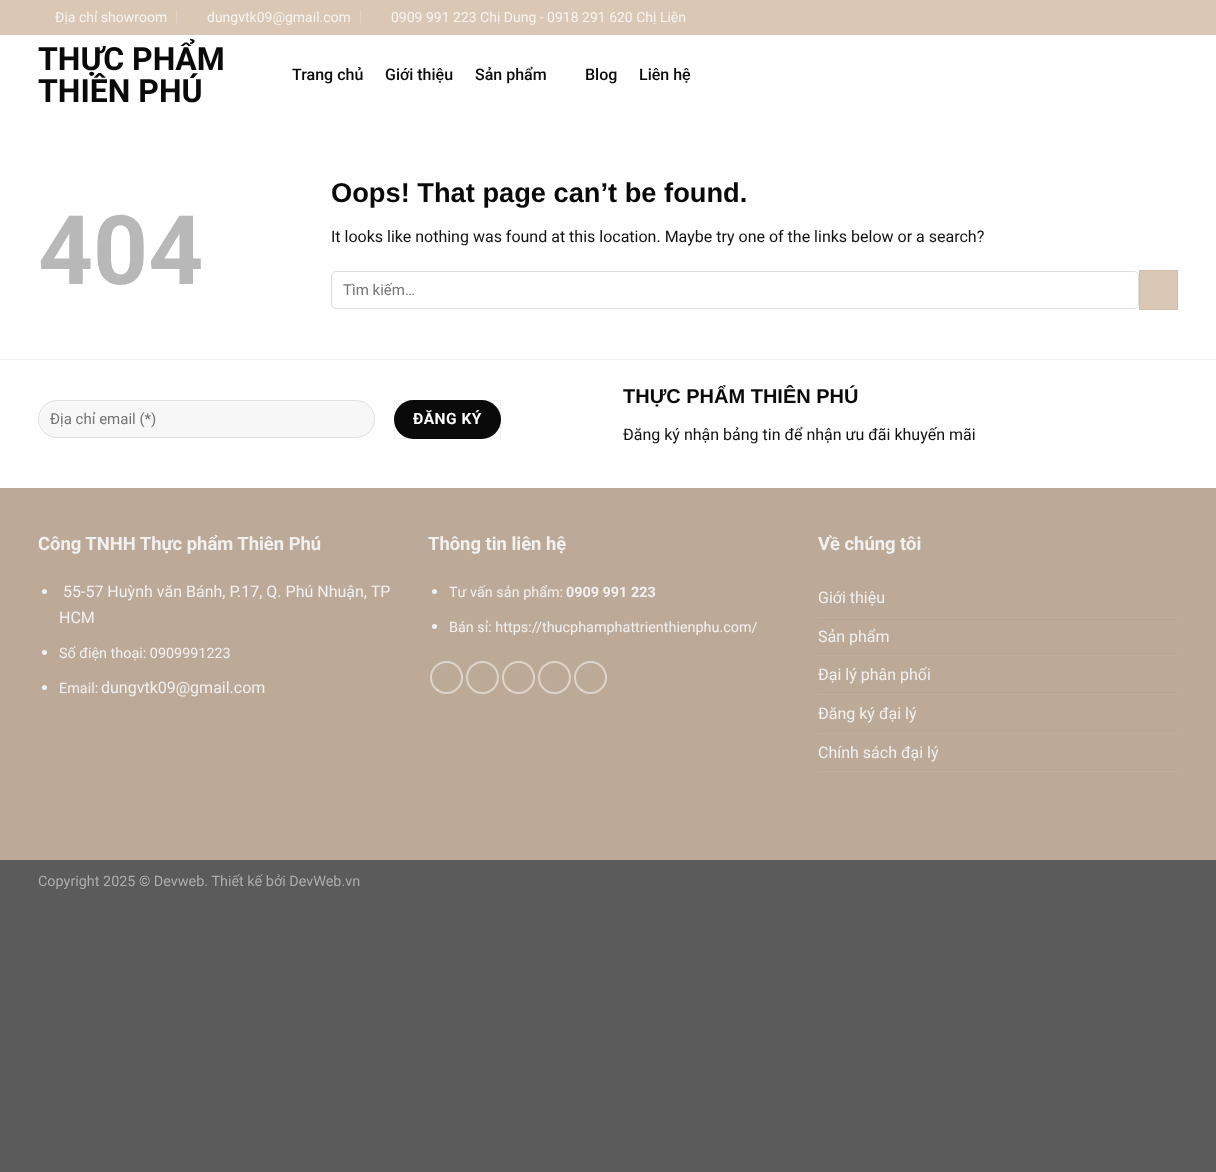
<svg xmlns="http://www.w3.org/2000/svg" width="1216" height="1172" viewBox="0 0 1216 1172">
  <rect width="100%" height="100%" fill="#5b5b5b"/>
  <rect x="0" y="35" width="1216" height="453" fill="#ffffff"/>
  <rect x="0" y="0" width="1216" height="35" fill="#dac7b6"/>
  <text x="55" y="22" font-family="Roboto" font-size="14" fill="#f8f4f0">Địa chỉ showroom</text>
  <rect x="176" y="10" width="1" height="15" fill="#e1d2c5"/>
  <text x="207" y="22" font-family="Roboto" font-size="14" fill="#f8f4f0">dungvtk09@gmail.com</text>
  <rect x="360" y="10" width="1" height="15" fill="#e1d2c5"/>
  <text x="391" y="22" font-family="Roboto" font-size="14" fill="#f8f4f0">0909 991 223 Chị Dung - 0918 291 620 Chị Liên</text>
  <text x="38" y="70" font-family="Roboto" font-size="32" font-weight="bold" fill="#0a0a0a">THỰC PHẨM</text>
  <text x="38" y="102" font-family="Roboto" font-size="32" font-weight="bold" fill="#0a0a0a">THIÊN PHÚ</text>
  <text x="292" y="80" font-family="Roboto" font-size="16" font-weight="500" fill="#0a0a0a">Trang chủ</text>
  <text x="385" y="80" font-family="Roboto" font-size="16" font-weight="500" fill="#0a0a0a">Giới thiệu</text>
  <text x="475" y="80" font-family="Roboto" font-size="16" font-weight="500" fill="#0a0a0a">Sản phẩm</text>
  <text x="585" y="80" font-family="Roboto" font-size="16" font-weight="500" fill="#0a0a0a">Blog</text>
  <text x="639" y="80" font-family="Roboto" font-size="16" font-weight="500" fill="#0a0a0a">Liên hệ</text>
  <text x="38" y="284" font-family="Roboto" font-size="96" font-weight="bold" fill="#b8b8b8">404</text>
  <text x="331" y="202" font-family="Liberation Sans" font-size="27.25" font-weight="bold" fill="#0a0a0a">Oops! That page can’t be found.</text>
  <text x="331" y="242" font-family="Roboto" font-size="16" fill="#111111">It looks like nothing was found at this location. Maybe try one of the links below or a search?</text>
  <rect x="331.5" y="271.5" width="807" height="37" rx="4.5" fill="none" stroke="#dddddd"/>
  <text x="343" y="295" font-family="Roboto" font-size="15" fill="#757575">Tìm kiếm…</text>
  <rect x="1139.5" y="270.5" width="38" height="39" fill="#dac7b6" stroke="#cfbdad"/>
  <rect x="0" y="359" width="1216" height="1" fill="#f3f3f3"/>
  <rect x="38" y="400" width="337" height="38" rx="19" fill="#f7f7f7"/>
  <rect x="38.5" y="400.5" width="336" height="37" rx="18.5" fill="none" stroke="#000000" stroke-opacity="0.09"/>
  <text x="50" y="424" font-family="Roboto" font-size="15" fill="#757575">Địa chỉ email (*)</text>
  <rect x="394" y="400" width="107" height="39" rx="19.5" fill="#0a0a0a"/>
  <rect x="394.5" y="400.5" width="106" height="38" fill="none" stroke="#000000" stroke-opacity="0.05"/>
  <text x="413" y="424" font-family="Roboto" font-size="15.5" font-weight="bold" letter-spacing="0.5" fill="#ffffff">ĐĂNG KÝ</text>
  <text x="623" y="403" font-family="Liberation Sans" font-size="20" font-weight="bold" fill="#0a0a0a">THỰC PHẨM THIÊN PHÚ</text>
  <text x="623" y="440" font-family="Roboto" font-size="16" fill="#111111">Đăng ký nhận bảng tin để nhận ưu đãi khuyến mãi</text>
  <rect x="0" y="488" width="1216" height="372" fill="#bda997"/>
  <text x="38" y="550" font-family="Roboto" font-size="18.4" font-weight="bold" fill="#f1f1f1">Công TNHH Thực phẩm Thiên Phú</text>
  <circle cx="44.5" cy="591.5" r="2.5" fill="#f1f1f1"/>
  <text x="63" y="597" font-family="Roboto" font-size="16" fill="#f1f1f1">55-57 Huỳnh văn Bánh, P.17, Q. Phú Nhuận, TP</text>
  <text x="59" y="623" font-family="Roboto" font-size="16" fill="#f1f1f1">HCM</text>
  <circle cx="44.5" cy="652.5" r="2.5" fill="#f1f1f1"/>
  <text x="59" y="658" font-family="Roboto" font-size="14.4" fill="#f1f1f1">Số điện thoại: 0909991223</text>
  <circle cx="44.5" cy="687.5" r="2.5" fill="#f1f1f1"/>
  <text x="59" y="693" font-family="Roboto" font-size="14.4" fill="#f1f1f1">Email:</text>
  <text x="101" y="693" font-family="Roboto" font-size="16" fill="#f1f1f1">dungvtk09@gmail.com</text>
  <text x="428" y="550" font-family="Roboto" font-size="18.4" font-weight="bold" fill="#f1f1f1">Thông tin liên hệ</text>
  <circle cx="434.5" cy="591.5" r="2.5" fill="#f1f1f1"/>
  <text x="449" y="597" font-family="Roboto" font-size="14.4" fill="#f1f1f1">Tư vấn sản phẩm:</text>
  <text x="566" y="597" font-family="Roboto" font-size="14.4" font-weight="bold" fill="#f1f1f1">0909 991 223</text>
  <circle cx="434.5" cy="626.5" r="2.5" fill="#f1f1f1"/>
  <text x="449" y="632" font-family="Roboto" font-size="14.4" fill="#f1f1f1">Bán sỉ: https://thucphamphattrienthienphu.com/</text>
  <circle cx="446.5" cy="677.5" r="15.5" fill="none" stroke="#ded4cb" stroke-width="2"/>
  <circle cx="482.5" cy="677.5" r="15.5" fill="none" stroke="#ded4cb" stroke-width="2"/>
  <circle cx="518.5" cy="677.5" r="15.5" fill="none" stroke="#ded4cb" stroke-width="2"/>
  <circle cx="554.5" cy="677.5" r="15.5" fill="none" stroke="#ded4cb" stroke-width="2"/>
  <circle cx="590.5" cy="677.5" r="15.5" fill="none" stroke="#ded4cb" stroke-width="2"/>
  <text x="818" y="550" font-family="Roboto" font-size="18.4" font-weight="bold" fill="#f1f1f1">Về chúng tôi</text>
  <text x="818" y="603" font-family="Roboto" font-size="16" fill="#f1f1f1">Giới thiệu</text>
  <rect x="818" y="617" width="360" height="1" fill="#c2b09f"/>
  <text x="818" y="642" font-family="Roboto" font-size="16" fill="#f1f1f1">Sản phẩm</text>
  <rect x="818" y="655" width="360" height="1" fill="#c2b09f"/>
  <text x="818" y="680" font-family="Roboto" font-size="16" fill="#f1f1f1">Đại lý phân phối</text>
  <rect x="818" y="694" width="360" height="1" fill="#c2b09f"/>
  <text x="818" y="719" font-family="Roboto" font-size="16" fill="#f1f1f1">Đăng ký đại lý</text>
  <rect x="818" y="733" width="360" height="1" fill="#c2b09f"/>
  <text x="818" y="758" font-family="Roboto" font-size="16" fill="#f1f1f1">Chính sách đại lý</text>
  <rect x="818" y="771" width="360" height="1" fill="#c2b09f"/>
  <text x="38" y="886" font-family="Roboto" font-size="14.4" fill="#adadad">Copyright 2025 © Devweb. Thiết kế bởi DevWeb.vn</text>
</svg>
